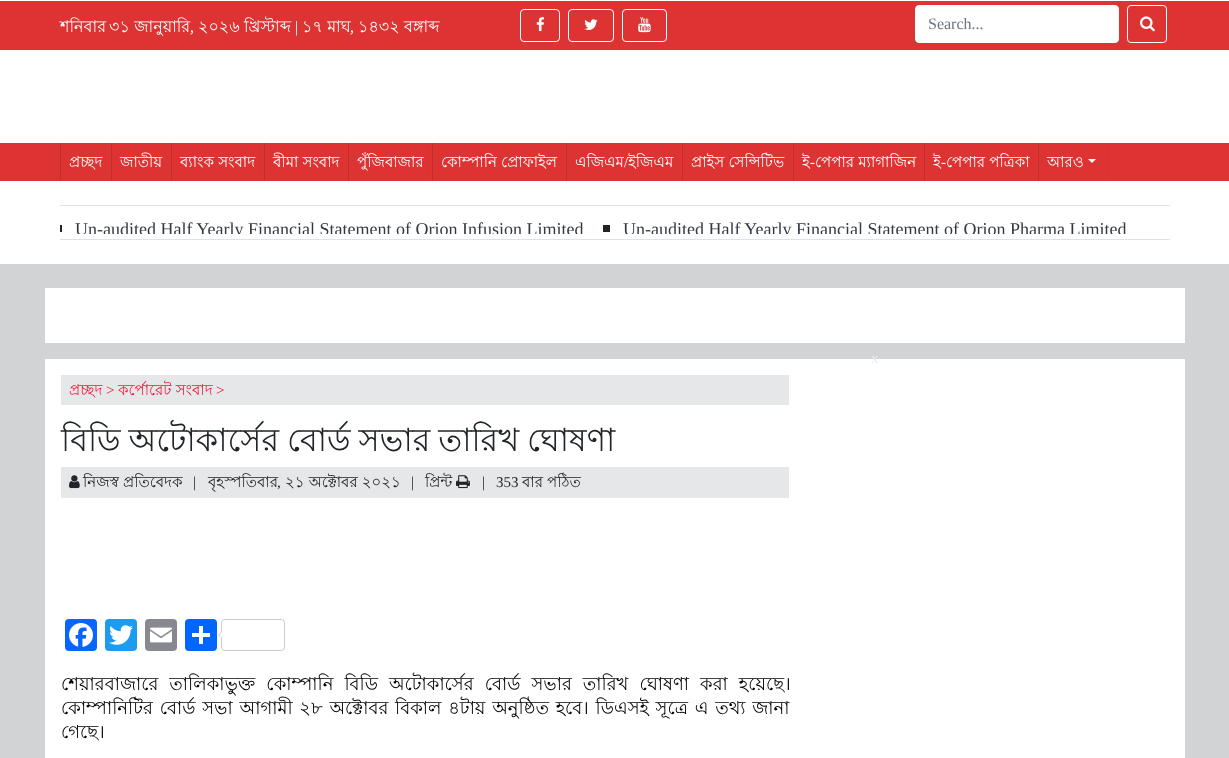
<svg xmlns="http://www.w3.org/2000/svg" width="1229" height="758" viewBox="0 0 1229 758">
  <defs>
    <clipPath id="clip1"><rect x="60" y="214" width="1110" height="20"/></clipPath>
    <clipPath id="clip2"><rect x="61" y="603" width="728" height="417"/></clipPath>
  </defs>
  <rect width="100%" height="100%" fill="#d1d3d4"/>
  <rect x="0" y="0" width="1229" height="264" fill="#ffffff"/>
  <rect x="0" y="1" width="1229" height="49" fill="#dd3333"/>
  <text x="60" y="32" font-family="Lohit Bengali" font-size="16" fill="#ffffff">শনিবার</text>
  <text x="109" y="32" font-family="Lohit Bengali" font-size="16" fill="#ffffff">৩১ জানুয়ারি</text>
  <text x="190" y="32" font-family="Liberation Serif" font-size="16" fill="#ffffff">,</text>
  <text x="198" y="32" font-family="Lohit Bengali" font-size="16" fill="#ffffff">২০২৬ খ্রিস্টাব্দ</text>
  <text x="295" y="32" font-family="Liberation Serif" font-size="16" fill="#ffffff">|</text>
  <text x="302" y="32" font-family="Lohit Bengali" font-size="16" fill="#ffffff">১৭ মাঘ</text>
  <text x="350" y="32" font-family="Liberation Serif" font-size="16" fill="#ffffff">,</text>
  <text x="358" y="32" font-family="Lohit Bengali" font-size="16" fill="#ffffff">১৪৩২ বঙ্গাব্দ</text>
  <rect x="520.5" y="9.5" width="39" height="32" rx="3.5" fill="none" stroke="#ffffff"/>
  <image x="536" y="17" width="9" height="15" href="img1.png"/>
  <rect x="568.5" y="9.5" width="45" height="32" rx="3.5" fill="none" stroke="#ffffff"/>
  <image x="584" y="19" width="14" height="11" href="img2.png"/>
  <rect x="622.5" y="9.5" width="44" height="32" rx="3.5" fill="none" stroke="#ffffff"/>
  <image x="638" y="17" width="13" height="16" href="img3.png"/>
  <rect x="915.5" y="5.5" width="203" height="37" rx="3.5" fill="#ffffff" stroke="#ffffff"/>
  <text x="928" y="29" font-family="Liberation Serif" font-size="16" fill="#6c757d">Search...</text>
  <rect x="1127.5" y="5.5" width="39" height="37" rx="3.5" fill="none" stroke="#ffffff"/>
  <image x="1140" y="16" width="15" height="16" href="img4.png"/>
  <rect x="0" y="143" width="1229" height="38" fill="#dd3333"/>
  <rect x="110" y="143" width="1" height="38" fill="#e23434"/>
  <rect x="60" y="143" width="1" height="38" fill="#c12c2c"/>
  <text x="69" y="167" font-family="Lohit Bengali" font-size="15" fill="#ffffff">প্রচ্ছদ</text>
  <rect x="170" y="143" width="1" height="38" fill="#e23434"/>
  <rect x="111" y="143" width="1" height="38" fill="#c12c2c"/>
  <text x="120" y="167" font-family="Lohit Bengali" font-size="15" fill="#ffffff">জাতীয়</text>
  <rect x="263" y="143" width="1" height="38" fill="#e23434"/>
  <rect x="171" y="143" width="1" height="38" fill="#c12c2c"/>
  <text x="180" y="167" font-family="Lohit Bengali" font-size="15" fill="#ffffff">ব্যাংক সংবাদ</text>
  <rect x="347" y="143" width="1" height="38" fill="#e23434"/>
  <rect x="264" y="143" width="1" height="38" fill="#c12c2c"/>
  <text x="273" y="167" font-family="Lohit Bengali" font-size="15" fill="#ffffff">বীমা সংবাদ</text>
  <rect x="431" y="143" width="1" height="38" fill="#e23434"/>
  <rect x="348" y="143" width="1" height="38" fill="#c12c2c"/>
  <text x="357" y="167" font-family="Lohit Bengali" font-size="15" fill="#ffffff">পুঁজিবাজার</text>
  <rect x="565" y="143" width="1" height="38" fill="#e23434"/>
  <rect x="432" y="143" width="1" height="38" fill="#c12c2c"/>
  <text x="441" y="167" font-family="Lohit Bengali" font-size="15" fill="#ffffff">কোম্পানি প্রোফাইল</text>
  <rect x="681" y="143" width="1" height="38" fill="#e23434"/>
  <rect x="566" y="143" width="1" height="38" fill="#c12c2c"/>
  <text x="575" y="167" font-family="Lohit Bengali" font-size="15" fill="#ffffff">এজিএম</text>
  <text x="624" y="167" font-family="Liberation Serif" font-size="15" fill="#ffffff">/</text>
  <text x="628" y="167" font-family="Lohit Bengali" font-size="15" fill="#ffffff">ইজিএম</text>
  <rect x="792" y="143" width="1" height="38" fill="#e23434"/>
  <rect x="682" y="143" width="1" height="38" fill="#c12c2c"/>
  <text x="691" y="167" font-family="Lohit Bengali" font-size="15" fill="#ffffff">প্রাইস সেন্সিটিভ</text>
  <rect x="923" y="143" width="1" height="38" fill="#e23434"/>
  <rect x="793" y="143" width="1" height="38" fill="#c12c2c"/>
  <text x="802" y="167" font-family="Lohit Bengali" font-size="15" fill="#ffffff">ই</text>
  <text x="810" y="167" font-family="Liberation Serif" font-size="15" fill="#ffffff">-</text>
  <text x="815" y="167" font-family="Lohit Bengali" font-size="15" fill="#ffffff">পেপার ম্যাগাজিন</text>
  <rect x="1037" y="143" width="1" height="38" fill="#e23434"/>
  <rect x="924" y="143" width="1" height="38" fill="#c12c2c"/>
  <text x="933" y="167" font-family="Lohit Bengali" font-size="15" fill="#ffffff">ই</text>
  <text x="941" y="167" font-family="Liberation Serif" font-size="15" fill="#ffffff">-</text>
  <text x="946" y="167" font-family="Lohit Bengali" font-size="15" fill="#ffffff">পেপার পত্রিকা</text>
  <rect x="1104" y="143" width="1" height="38" fill="#e23434"/>
  <rect x="1038" y="143" width="1" height="38" fill="#c12c2c"/>
  <text x="1047" y="167" font-family="Lohit Bengali" font-size="15" fill="#ffffff">আরও</text>
  <path d="M1088 159H1096L1092 163Z" fill="#ffffff"/>
  <rect x="60" y="205" width="1110" height="1" fill="#dee2e6"/>
  <rect x="60" y="239" width="1110" height="1" fill="#dee2e6"/>
  <rect x="60" y="225" width="2" height="7" fill="#212529"/>
  <g clip-path="url(#clip1)">
    <text x="75" y="235" font-family="Liberation Serif" font-size="18" fill="#343a40">Un-audited Half Yearly Financial Statement of Orion Infusion Limited</text>
  </g>
  <rect x="603" y="225" width="7" height="7" fill="#212529"/>
  <g clip-path="url(#clip1)">
    <text x="623" y="235" font-family="Liberation Serif" font-size="18" fill="#343a40">Un-audited Half Yearly Financial Statement of Orion Pharma Limited</text>
  </g>
  <rect x="45" y="288" width="1140" height="55" fill="#ffffff"/>
  <rect x="45" y="359" width="1140" height="399" fill="#ffffff"/>
  <text x="871" y="363" font-family="Liberation Serif" font-size="15" fill="#ebecec">x</text>
  <rect x="61" y="375" width="728" height="30" fill="#e6e7e8"/>
  <text x="69" y="395" font-family="Lohit Bengali" font-size="15" fill="#ed193e">প্রচ্ছদ</text>
  <text x="106" y="395" font-family="Liberation Serif" font-size="15" fill="#ed193e">&gt;</text>
  <text x="118" y="395" font-family="Lohit Bengali" font-size="15" fill="#ed193e">কর্পোরেট সংবাদ</text>
  <text x="216" y="395" font-family="Liberation Serif" font-size="15" fill="#ed193e">&gt;</text>
  <text x="61" y="451" word-spacing="-1" font-family="Lohit Bengali" font-size="32" fill="#212529">বিডি অটোকার্সের বোর্ড সভার তারিখ ঘোষণা</text>
  <rect x="61" y="467" width="728" height="31" fill="#e6e7e8"/>
  <image x="69" y="475" width="11" height="14" href="img5.png"/>
  <text x="83" y="487" font-family="Lohit Bengali" font-size="15" fill="#212529">নিজস্ব প্রতিবেদক</text>
  <text x="193" y="487" font-family="Liberation Serif" font-size="15" fill="#212529">|</text>
  <text x="208" y="487" font-family="Lohit Bengali" font-size="15" fill="#212529">বৃহস্পতিবার</text>
  <text x="277" y="487" font-family="Liberation Serif" font-size="15" fill="#212529">,</text>
  <text x="285" y="487" font-family="Lohit Bengali" font-size="15" fill="#212529">২১ অক্টোবর ২০২১</text>
  <text x="411" y="487" font-family="Liberation Serif" font-size="15" fill="#212529">|</text>
  <text x="425" y="487" font-family="Lohit Bengali" font-size="15" fill="#212529">প্রিন্ট</text>
  <image x="456" y="475" width="14" height="14" href="img6.png"/>
  <text x="482" y="487" font-family="Liberation Serif" font-size="15" fill="#212529">|</text>
  <text x="496" y="487" font-family="Liberation Serif" font-size="15" fill="#212529">353</text>
  <text x="522" y="487" font-family="Lohit Bengali" font-size="15" fill="#212529">বার পঠিত</text>
  <rect x="65" y="619" width="32" height="32" rx="4" fill="#0866ff"/>
  <image x="69" y="623" width="24" height="24" href="img7.png"/>
  <rect x="105" y="619" width="32" height="32" rx="4" fill="#1d9bf0"/>
  <image x="109" y="625" width="24" height="20" href="img8.png"/>
  <rect x="145" y="619" width="32" height="32" rx="4" fill="#888990"/>
  <image x="150" y="627" width="22" height="16" href="img9.png"/>
  <rect x="185" y="619" width="32" height="32" rx="4" fill="#0166ff"/>
  <rect x="199" y="626" width="4" height="18" fill="#ffffff"/>
  <rect x="192" y="633" width="18" height="4" fill="#ffffff"/>
  <rect x="221.5" y="619.5" width="63" height="31" rx="3.5" fill="none" stroke="#cccccc"/>
  <path d="M222 631V639L218 635Z" fill="#cccccc"/>
  <path d="M223 631V639L219 635Z" fill="#ffffff"/>
  <g clip-path="url(#clip2)">
    <text x="61" y="690" word-spacing="6" font-family="Lohit Bengali" font-size="18" fill="#000000">শেয়ারবাজারে তালিকাভুক্ত কোম্পানি বিডি অটোকার্সের বোর্ড সভার তারিখ ঘোষণা করা হয়েছে।</text>
  </g>
  <text x="61" y="714" word-spacing="1.75" font-family="Lohit Bengali" font-size="18" fill="#000000">কোম্পানিটির বোর্ড সভা আগামী ২৮ অক্টোবর বিকাল ৪টায় অনুষ্ঠিত হবে। ডিএসই সূত্রে এ তথ্য জানা</text>
  <text x="61" y="738" font-family="Lohit Bengali" font-size="18" fill="#000000">গেছে।</text>
</svg>
